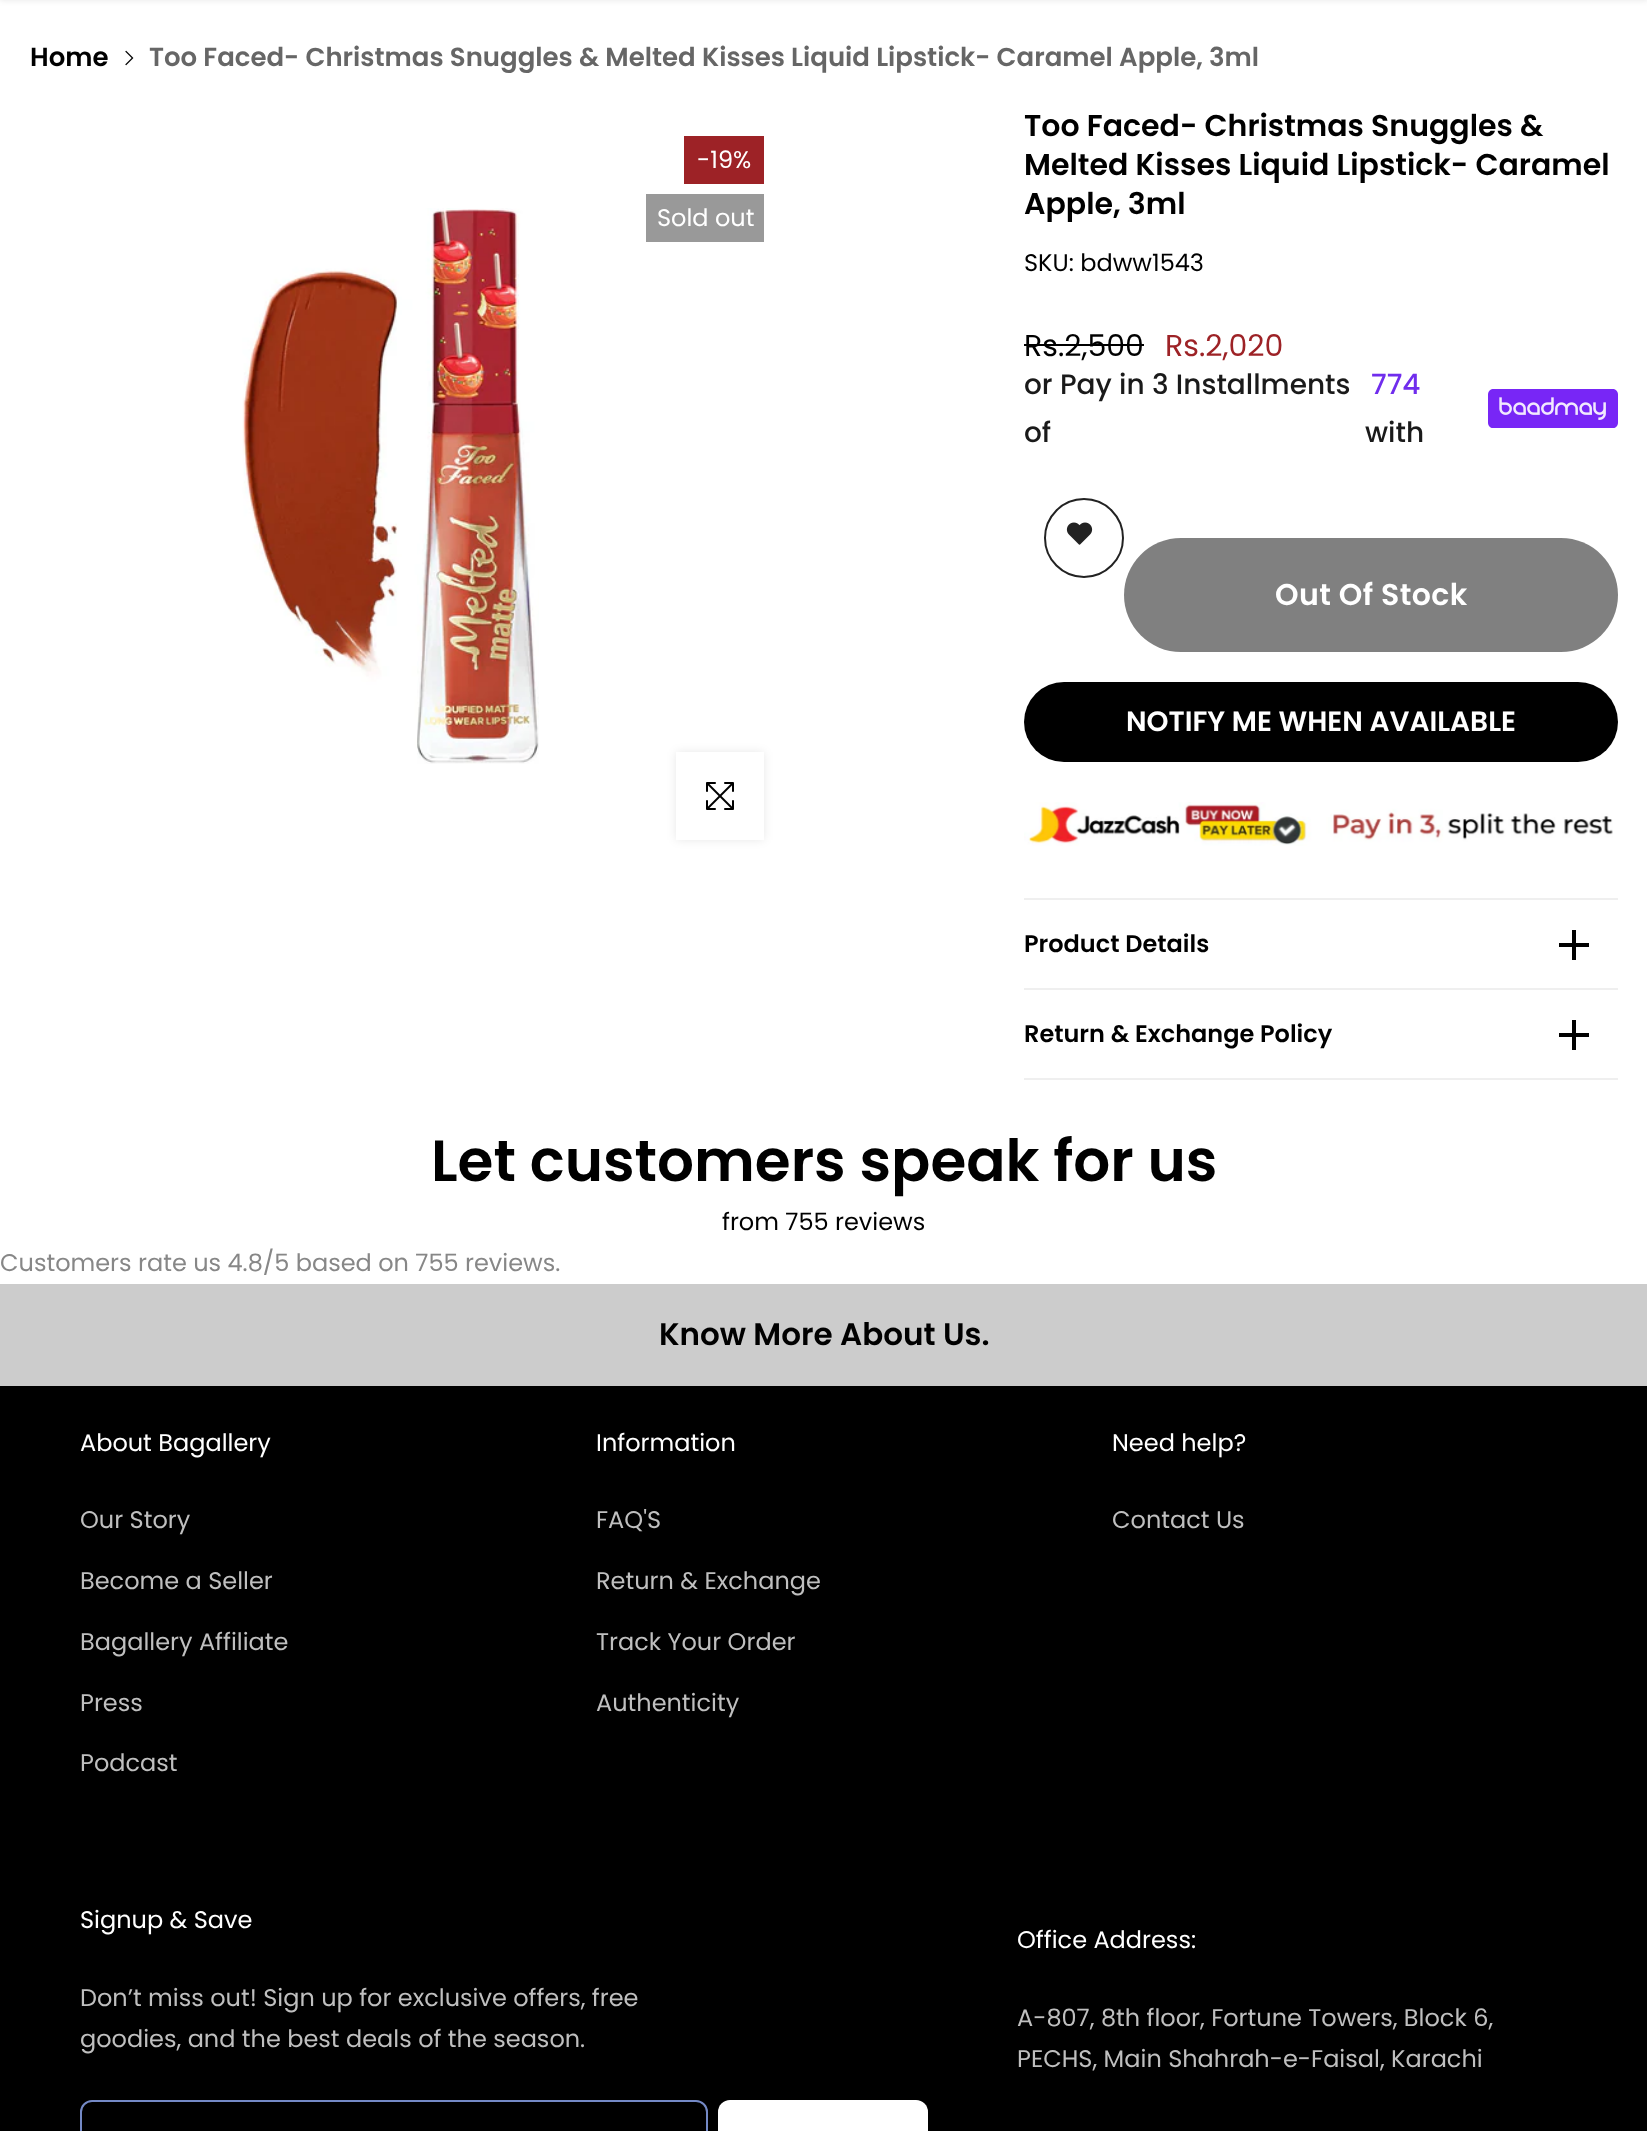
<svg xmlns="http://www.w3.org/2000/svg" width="1647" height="2131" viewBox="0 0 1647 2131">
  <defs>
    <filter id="blur1" x="-50%" y="-200%" width="200%" height="500%"><feGaussianBlur stdDeviation="3"/></filter>
    <clipPath id="clip1"><path d="M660 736H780V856H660ZM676 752H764V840H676Z" clip-rule="evenodd"/></clipPath>
    <filter id="blur2" x="-50%" y="-200%" width="200%" height="500%"><feGaussianBlur stdDeviation="5"/></filter>
  </defs>
  <rect width="100%" height="100%" fill="#ffffff"/>
  <rect x="0" y="-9" width="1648" height="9" fill="#000000" fill-opacity="0.1" filter="url(#blur1)"/>
  <text x="30" y="66" font-family="Poppins" font-size="26" font-weight="600" fill="#000000">Home</text>
  <image x="125" y="50" width="9" height="16" href="img1.png"/>
  <text x="149" y="66" font-family="Poppins" font-size="26" font-weight="600" fill="#666666">Too Faced- Christmas Snuggles &amp; Melted Kisses Liquid Lipstick- Caramel Apple, 3ml</text>
  <rect x="684" y="136" width="80" height="48" fill="#9d2226"/>
  <text x="697" y="168" font-family="Poppins" font-size="24" fill="#ffffff">-19%</text>
  <rect x="646" y="194" width="118" height="48" fill="#999999"/>
  <text x="657" y="226" font-family="Poppins" font-size="24" fill="#ffffff">Sold out</text>
  <image x="242" y="208" width="297" height="556" href="img2.png"/>
  <g clip-path="url(#clip1)">
    <rect x="676" y="752" width="88" height="88" fill="#000000" fill-opacity="0.09" filter="url(#blur2)"/>
  </g>
  <image x="706" y="782" width="28" height="28" href="img3.png"/>
  <text x="1024" y="136" font-family="Poppins" font-size="30" font-weight="600" fill="#000000">Too Faced- Christmas Snuggles &amp;</text>
  <text x="1024" y="175" font-family="Poppins" font-size="30" font-weight="600" fill="#000000">Melted Kisses Liquid Lipstick- Caramel</text>
  <text x="1024" y="214" font-family="Poppins" font-size="30" font-weight="600" fill="#000000">Apple, 3ml</text>
  <text x="1024" y="271" font-family="Poppins" font-size="24" fill="#000000">SKU: bdww1543</text>
  <text x="1024" y="356" font-family="Poppins" font-size="30" fill="#000000">Rs.2,500</text>
  <rect x="1024" y="344" width="120" height="2" fill="#000000"/>
  <text x="1165" y="356" font-family="Poppins" font-size="30" fill="#9d2226">Rs.2,020</text>
  <text x="1024" y="394" font-family="Poppins" font-size="28" font-weight="500" fill="#1a1a1a">or Pay in 3 Installments</text>
  <text x="1024" y="442" font-family="Poppins" font-size="28" font-weight="500" fill="#1a1a1a">of</text>
  <text x="1371" y="394" font-family="Poppins" font-size="28" font-weight="500" fill="#702ded">774</text>
  <text x="1365" y="442" font-family="Poppins" font-size="28" font-weight="500" fill="#1a1a1a">with</text>
  <image x="1488" y="389" width="130" height="39" href="img4.png"/>
  <circle cx="1084" cy="538" r="39" fill="none" stroke="#222222" stroke-width="2"/>
  <image x="1066" y="522" width="27" height="23" href="img5.png"/>
  <rect x="1124" y="538" width="494" height="114" rx="57" fill="#808080"/>
  <text x="1275" y="605" font-family="Poppins" font-size="30" font-weight="600" letter-spacing="0.4" fill="#ffffff">Out Of Stock</text>
  <rect x="1024" y="682" width="594" height="80" rx="40" fill="#000000"/>
  <text x="1126" y="731" font-family="Poppins" font-size="28" font-weight="600" fill="#ffffff">NOTIFY ME WHEN AVAILABLE</text>
  <image x="1024" y="802" width="589" height="44" href="img6.png"/>
  <rect x="1024" y="898" width="594" height="2" fill="#efefef"/>
  <rect x="1024" y="988" width="594" height="2" fill="#efefef"/>
  <text x="1024" y="952" font-family="Poppins" font-size="24" font-weight="600" fill="#000000">Product Details</text>
  <rect x="1572" y="930" width="4" height="30" fill="#000000"/>
  <rect x="1559" y="943" width="30" height="4" fill="#000000"/>
  <rect x="1024" y="1078" width="594" height="2" fill="#efefef"/>
  <text x="1024" y="1042" font-family="Poppins" font-size="24" font-weight="600" fill="#000000">Return &amp; Exchange Policy</text>
  <rect x="1572" y="1020" width="4" height="30" fill="#000000"/>
  <rect x="1559" y="1033" width="30" height="4" fill="#000000"/>
  <text x="431" y="1181" font-family="Poppins" font-size="58" font-weight="600" fill="#000000">Let customers speak for us</text>
  <text x="722" y="1230" font-family="Poppins" font-size="24" fill="#000000">from 755 reviews</text>
  <text x="0" y="1271" font-family="Poppins" font-size="24" fill="#878787">Customers rate us 4.8/5 based on 755 reviews.</text>
  <rect x="0" y="1284" width="1647" height="102" fill="#cccccc"/>
  <text x="659" y="1345" font-family="Poppins" font-size="31" font-weight="600" fill="#000000">Know More About Us.</text>
  <rect x="0" y="1386" width="1647" height="745" fill="#000000"/>
  <text x="80" y="1451" font-family="Poppins" font-size="24" fill="#ffffff">About Bagallery</text>
  <text x="80" y="1528" font-family="Poppins" font-size="24" fill="#bfbfbf">Our Story</text>
  <text x="80" y="1589" font-family="Poppins" font-size="24" fill="#bfbfbf">Become a Seller</text>
  <text x="80" y="1650" font-family="Poppins" font-size="24" fill="#bfbfbf">Bagallery Affiliate</text>
  <text x="80" y="1711" font-family="Poppins" font-size="24" fill="#bfbfbf">Press</text>
  <text x="80" y="1771" font-family="Poppins" font-size="24" fill="#bfbfbf">Podcast</text>
  <text x="596" y="1451" font-family="Poppins" font-size="24" fill="#ffffff">Information</text>
  <text x="596" y="1528" font-family="Poppins" font-size="24" fill="#bfbfbf">FAQ'S</text>
  <text x="596" y="1589" font-family="Poppins" font-size="24" fill="#bfbfbf">Return &amp; Exchange</text>
  <text x="596" y="1650" font-family="Poppins" font-size="24" fill="#bfbfbf">Track Your Order</text>
  <text x="596" y="1711" font-family="Poppins" font-size="24" fill="#bfbfbf">Authenticity</text>
  <text x="1112" y="1451" font-family="Poppins" font-size="24" fill="#ffffff">Need help?</text>
  <text x="1112" y="1528" font-family="Poppins" font-size="24" fill="#bfbfbf">Contact Us</text>
  <text x="80" y="1928" font-family="Poppins" font-size="24" fill="#ffffff">Signup &amp; Save</text>
  <text x="80" y="2006" font-family="Poppins" font-size="24" fill="#bfbfbf">Don’t miss out! Sign up for exclusive offers, free</text>
  <text x="80" y="2047" font-family="Poppins" font-size="24" fill="#bfbfbf">goodies, and the best deals of the season.</text>
  <rect x="81" y="2101" width="626" height="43" rx="11" fill="none" stroke="#7489c6" stroke-width="2"/>
  <rect x="718" y="2100" width="210" height="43" rx="12" fill="#ffffff"/>
  <text x="1017" y="1948" font-family="Poppins" font-size="24" fill="#ffffff">Office Address:</text>
  <text x="1017" y="2026" font-family="Poppins" font-size="24" fill="#bfbfbf">A-807, 8th floor, Fortune Towers, Block 6,</text>
  <text x="1017" y="2067" font-family="Poppins" font-size="24" fill="#bfbfbf">PECHS, Main Shahrah-e-Faisal, Karachi</text>
</svg>
